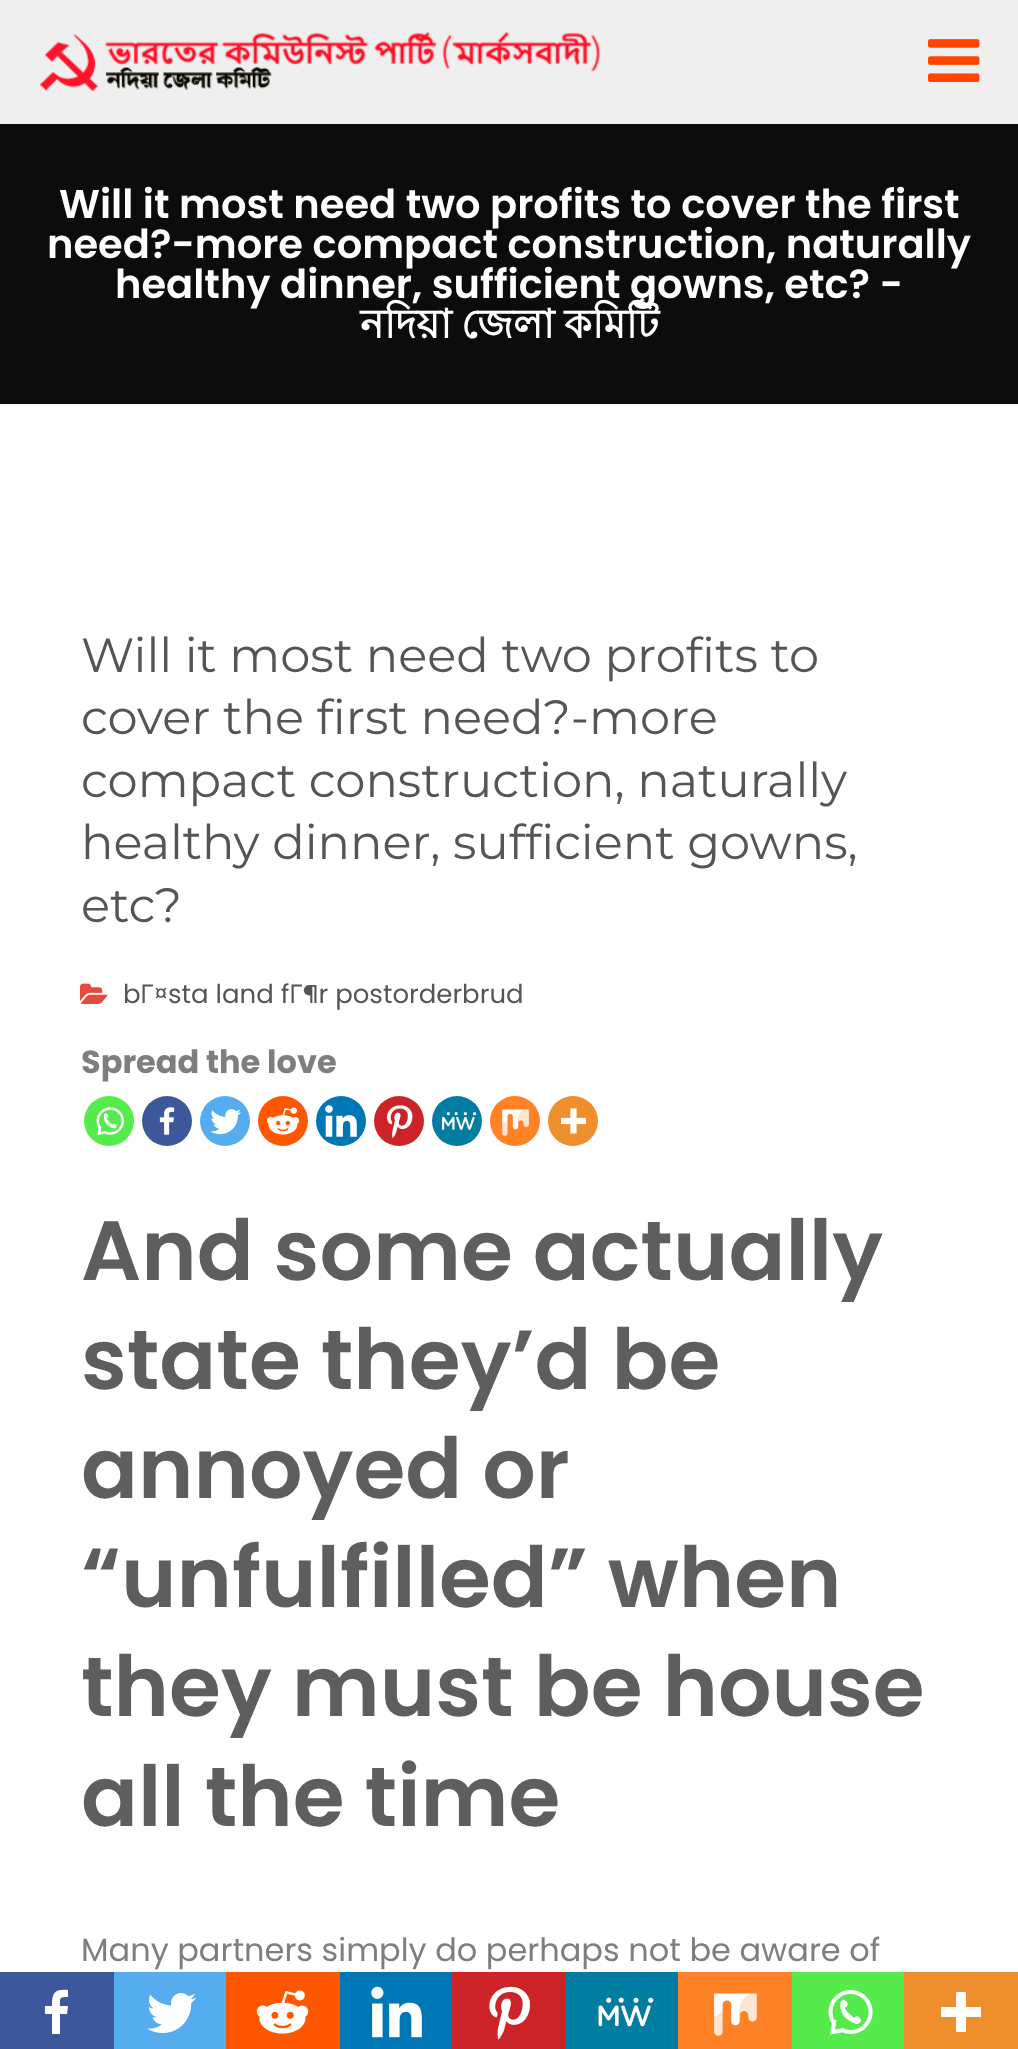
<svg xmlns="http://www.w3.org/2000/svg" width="1018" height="2049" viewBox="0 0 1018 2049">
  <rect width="100%" height="100%" fill="#ffffff"/>
  <rect x="0" y="0" width="1018" height="124" fill="#efefef"/>
  <image x="40" y="32" width="560" height="59" href="img1.png"/>
  <image x="928" y="39" width="52" height="43" href="img2.png"/>
  <rect x="0" y="124" width="1018" height="280" fill="#0c0c0c"/>
  <text x="59" y="218" font-family="Poppins" font-size="40" font-weight="600" fill="#ffffff">Will it most need two profits to cover the first</text>
  <text x="47" y="258" font-family="Poppins" font-size="40" font-weight="600" fill="#ffffff">need?-more compact construction, naturally</text>
  <text x="115" y="298" font-family="Poppins" font-size="40" font-weight="600" fill="#ffffff">healthy dinner, sufficient gowns, etc? -</text>
  <text x="360" y="338" font-family="Lohit Bengali" font-size="40" font-weight="bold" fill="#ffffff">নদিয়া</text>
  <text x="461" y="338" font-family="Lohit Bengali" font-size="40" font-weight="bold" fill="#ffffff">জেলা</text>
  <text x="564" y="338" font-family="Lohit Bengali" font-size="40" font-weight="bold" fill="#ffffff">কমিটি</text>
  <text x="81" y="672" font-family="Montserrat" font-size="48" fill="#555555">Will it most need two profits to</text>
  <text x="81" y="734" font-family="Montserrat" font-size="48" fill="#555555">cover the first need?-more</text>
  <text x="81" y="797" font-family="Montserrat" font-size="48" fill="#555555">compact construction, naturally</text>
  <text x="81" y="859" font-family="Montserrat" font-size="48" fill="#555555">healthy dinner, sufficient gowns,</text>
  <text x="81" y="922" font-family="Montserrat" font-size="48" fill="#555555">etc?</text>
  <image x="80" y="983" width="28" height="21" href="img3.png"/>
  <text x="123" y="1003" font-family="Poppins" font-size="26" fill="#555555">b</text>
  <text x="140" y="1003" font-family="Open Sans" font-size="26" fill="#555555">Г</text>
  <text x="154" y="1003" font-family="Poppins" font-size="26" fill="#555555">¤sta land f</text>
  <text x="289" y="1003" font-family="Open Sans" font-size="26" fill="#555555">Г</text>
  <text x="303" y="1003" font-family="Poppins" font-size="26" fill="#555555">¶r postorderbrud</text>
  <text x="81" y="1073" font-family="Poppins" font-size="32" font-weight="bold" fill="#7e7e7e">Spread the love</text>
  <circle cx="109" cy="1121" r="25" fill="#55eb4c"/>
  <image x="96" y="1107" width="28" height="28" href="img4.png"/>
  <circle cx="167" cy="1121" r="25" fill="#3c589a"/>
  <image x="159" y="1107" width="16" height="28" href="img5.png"/>
  <circle cx="225" cy="1121" r="25" fill="#55acee"/>
  <image x="210" y="1109" width="31" height="26" href="img6.png"/>
  <circle cx="283" cy="1121" r="25" fill="#ff5700"/>
  <image x="266" y="1107" width="34" height="28" href="img7.png"/>
  <circle cx="341" cy="1121" r="25" fill="#0077b5"/>
  <image x="325" y="1105" width="32" height="32" href="img8.png"/>
  <circle cx="399" cy="1121" r="25" fill="#cc2329"/>
  <image x="387" y="1105" width="26" height="34" href="img9.png"/>
  <circle cx="457" cy="1121" r="25" fill="#007da1"/>
  <image x="442" y="1112" width="35" height="18" href="img10.png"/>
  <circle cx="515" cy="1121" r="25" fill="#ff8226"/>
  <image x="502" y="1109" width="27" height="27" href="img11.png"/>
  <circle cx="573" cy="1121" r="25" fill="#ee8e2d"/>
  <image x="560" y="1108" width="26" height="26" href="img12.png"/>
  <text x="81" y="1280" font-family="Poppins" font-size="84" font-weight="600" fill="#5e5e5e">And some actually</text>
  <text x="81" y="1389" font-family="Poppins" font-size="84" font-weight="600" fill="#5e5e5e">state they’d be</text>
  <text x="81" y="1498" font-family="Poppins" font-size="84" font-weight="600" fill="#5e5e5e">annoyed or</text>
  <text x="81" y="1607" font-family="Poppins" font-size="84" font-weight="600" fill="#5e5e5e">“unfulfilled” when</text>
  <text x="81" y="1716" font-family="Poppins" font-size="84" font-weight="600" fill="#5e5e5e">they must be house</text>
  <text x="81" y="1826" font-family="Poppins" font-size="84" font-weight="600" fill="#5e5e5e">all the time</text>
  <text x="81" y="1961" font-family="Poppins" font-size="32" fill="#7e7e7e">Many partners simply do perhaps not be aware of</text>
  <rect x="0" y="1972" width="114" height="77" fill="#3c589a"/>
  <path d="M60 2034V2014H67L68 2006H60C60 1998 59 1997 68 1997V1990C54 1989 52 1993 52 2006H45V2014H52V2034Z" fill="#ffffff"/>
  <rect x="114" y="1972" width="112" height="77" fill="#55acee"/>
  <image x="147" y="1993" width="49" height="41" href="img13.png"/>
  <rect x="226" y="1972" width="114" height="77" fill="#ff5700"/>
  <image x="256" y="1990" width="53" height="44" href="img14.png"/>
  <rect x="340" y="1972" width="112" height="77" fill="#0077b5"/>
  <image x="371" y="1986" width="51" height="52" href="img15.png"/>
  <rect x="452" y="1972" width="114" height="77" fill="#cc2329"/>
  <image x="489" y="1986" width="41" height="54" href="img16.png"/>
  <rect x="566" y="1972" width="112" height="77" fill="#007da1"/>
  <image x="598" y="1997" width="56" height="30" href="img17.png"/>
  <rect x="678" y="1972" width="114" height="77" fill="#ff8226"/>
  <image x="714" y="1993" width="43" height="43" href="img18.png"/>
  <rect x="792" y="1972" width="112" height="77" fill="#55eb4c"/>
  <image x="828" y="1990" width="45" height="45" href="img19.png"/>
  <rect x="904" y="1972" width="114" height="77" fill="#ee8e2d"/>
  <path d="M966 2007V1992H956V2007H941V2017H956V2032H966V2017H981V2007Z" fill="#ffffff" fill-rule="evenodd"/>
</svg>
